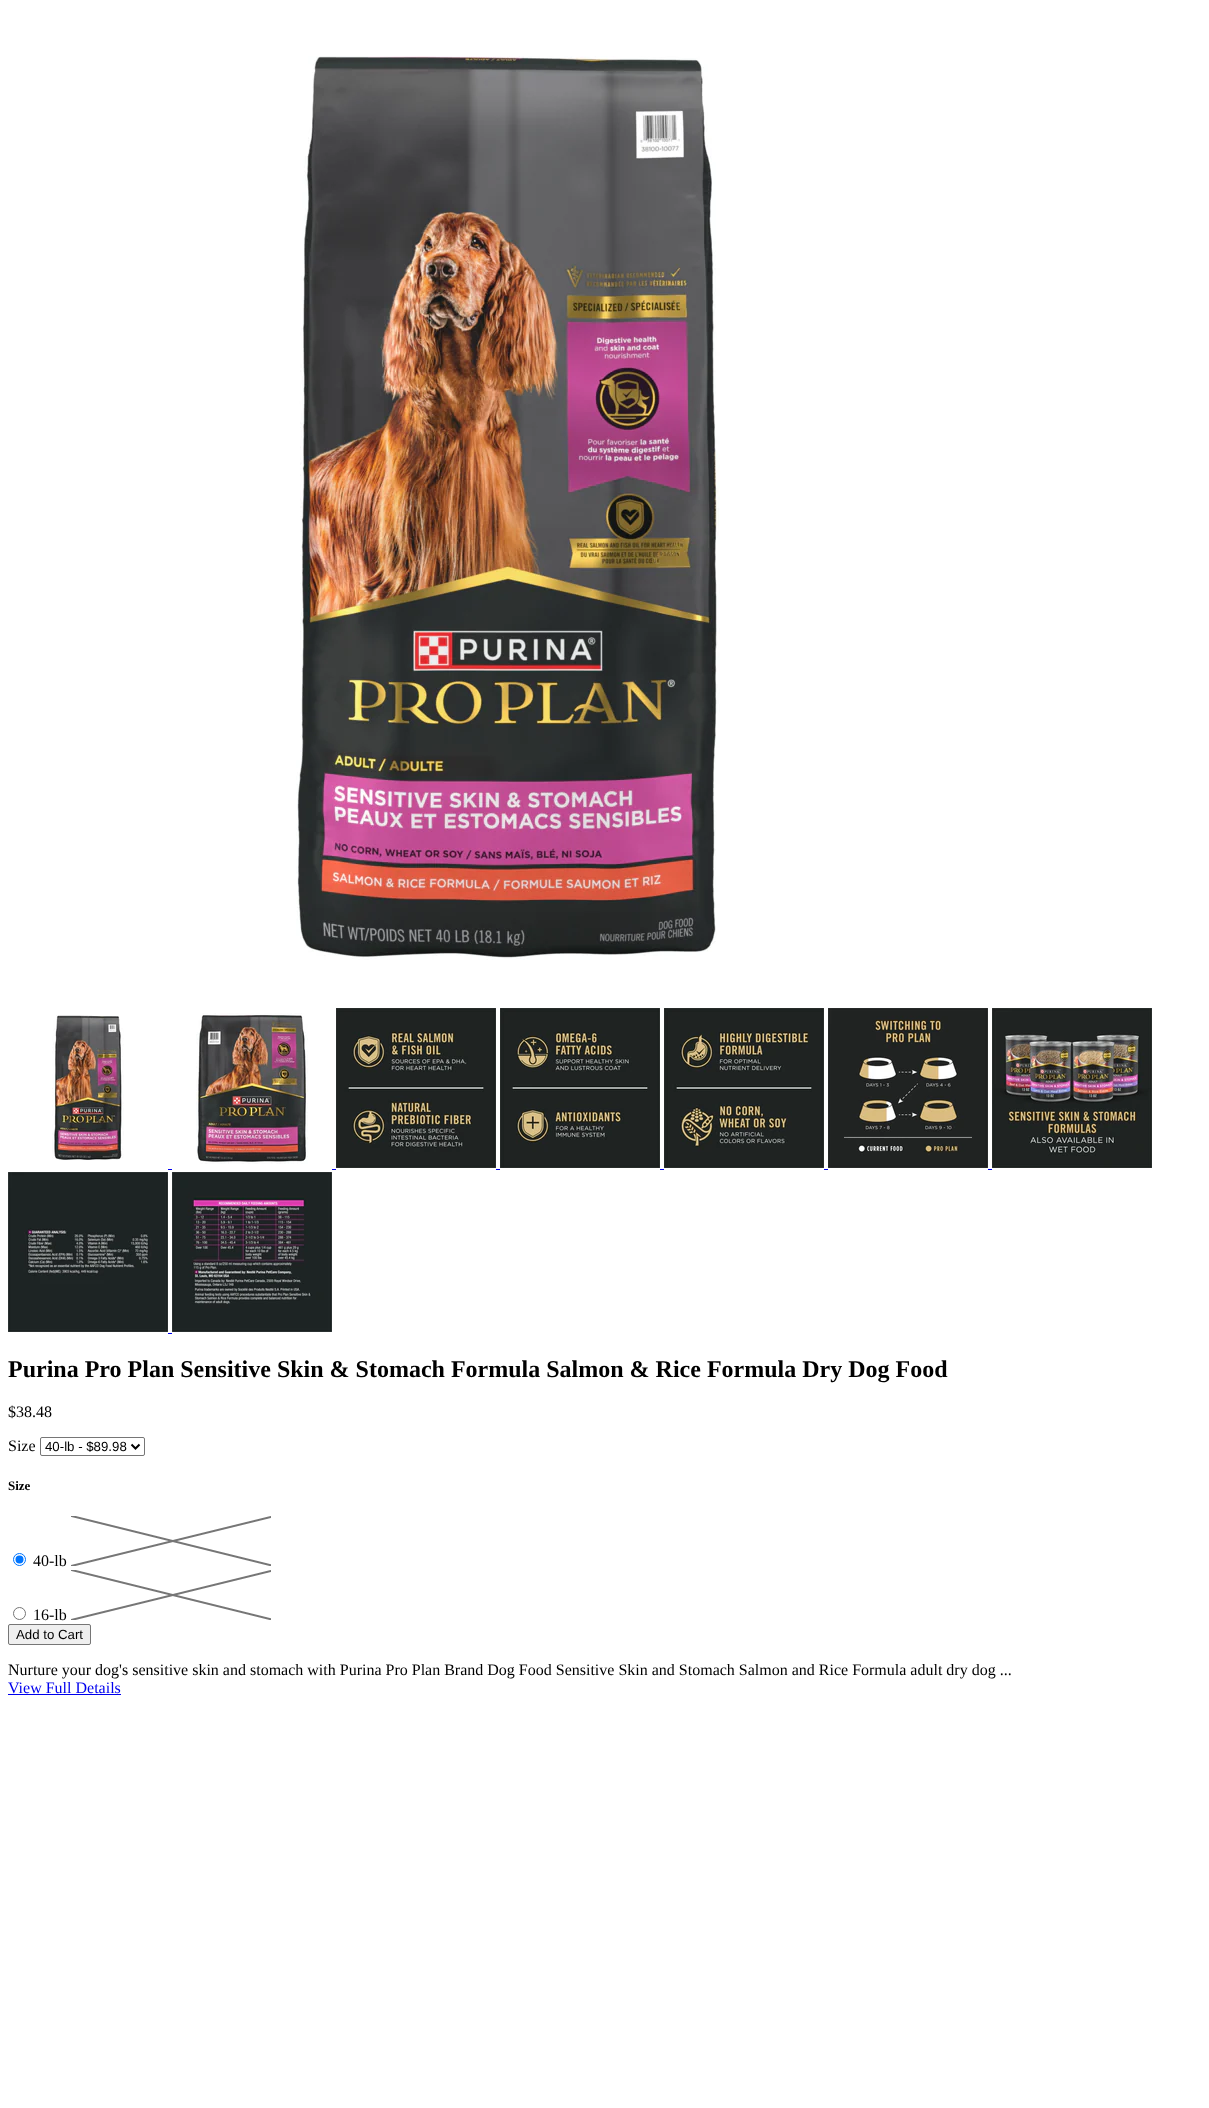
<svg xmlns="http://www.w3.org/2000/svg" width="1209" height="2108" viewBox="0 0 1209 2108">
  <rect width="100%" height="100%" fill="#ffffff"/>
  <image x="296" y="56" width="424" height="904" href="img1.png"/>
  <image x="52" y="1015" width="72" height="145" href="img2.png"/>
  <image x="196" y="1013" width="112" height="151" href="img3.png"/>
  <image x="336" y="1008" width="160" height="160" href="img4.png"/>
  <image x="500" y="1008" width="160" height="160" href="img5.png"/>
  <image x="664" y="1008" width="160" height="160" href="img6.png"/>
  <image x="828" y="1008" width="160" height="160" href="img7.png"/>
  <image x="992" y="1008" width="160" height="160" href="img8.png"/>
  <rect x="168" y="1169" width="4" height="1" fill="#0000ee"/>
  <rect x="332" y="1169" width="4" height="1" fill="#0000ee"/>
  <rect x="496" y="1169" width="4" height="1" fill="#0000ee"/>
  <rect x="660" y="1169" width="4" height="1" fill="#0000ee"/>
  <rect x="824" y="1169" width="4" height="1" fill="#0000ee"/>
  <rect x="988" y="1169" width="4" height="1" fill="#0000ee"/>
  <image x="8" y="1172" width="160" height="160" href="img9.png"/>
  <image x="172" y="1172" width="160" height="160" href="img10.png"/>
  <rect x="168" y="1333" width="4" height="1" fill="#0000ee"/>
  <text x="8" y="1377" font-family="Liberation Serif" font-size="24" font-weight="bold" fill="#000000">Purina Pro Plan Sensitive Skin &amp; Stomach Formula Salmon &amp; Rice Formula Dry Dog Food</text>
  <text x="8" y="1417" font-family="Liberation Serif" font-size="16" fill="#000000">$38.48</text>
  <text x="8" y="1451" font-family="Liberation Serif" font-size="16" fill="#000000">Size</text>
  <rect x="40.5" y="1437.5" width="104" height="18" rx="1.5" fill="none" stroke="#767676"/>
  <path d="M131.5 1444.5L135.5 1448.5L139.5 1444.5" fill="none" stroke="#000000" stroke-width="2"/>
  <text x="45" y="1451" font-family="Liberation Sans" font-size="13.25" fill="#000000">40-lb - $89.98</text>
  <text x="8" y="1490" font-family="Liberation Serif" font-size="13" font-weight="bold" fill="#000000">Size</text>
  <circle cx="19.5" cy="1559.5" r="6" fill="none" stroke="#0075ff"/>
  <circle cx="19.5" cy="1559.5" r="4" fill="#0075ff"/>
  <text x="33" y="1566" font-family="Liberation Serif" font-size="16" fill="#000000">40-lb</text>
  <image x="71" y="1516" width="200" height="50" href="img11.png"/>
  <circle cx="19.5" cy="1613.5" r="6" fill="none" stroke="#767676"/>
  <text x="33" y="1620" font-family="Liberation Serif" font-size="16" fill="#000000">16-lb</text>
  <image x="71" y="1570" width="200" height="50" href="img11.png"/>
  <rect x="8.5" y="1624.5" width="82" height="20" rx="1.5" fill="#efefef" stroke="#767676"/>
  <text x="16" y="1639" font-family="Liberation Sans" font-size="13.25" fill="#000000">Add to Cart</text>
  <text x="8" y="1675" font-family="Liberation Serif" font-size="16" fill="#000000">Nurture your dog's sensitive skin and stomach with Purina Pro Plan Brand Dog Food Sensitive Skin and Stomach Salmon and Rice Formula adult dry dog ...</text>
  <text x="8" y="1693" font-family="Liberation Serif" font-size="16" fill="#0000ee">View Full Details</text>
  <rect x="8" y="1694" width="113" height="1" fill="#0000ee"/>
</svg>
